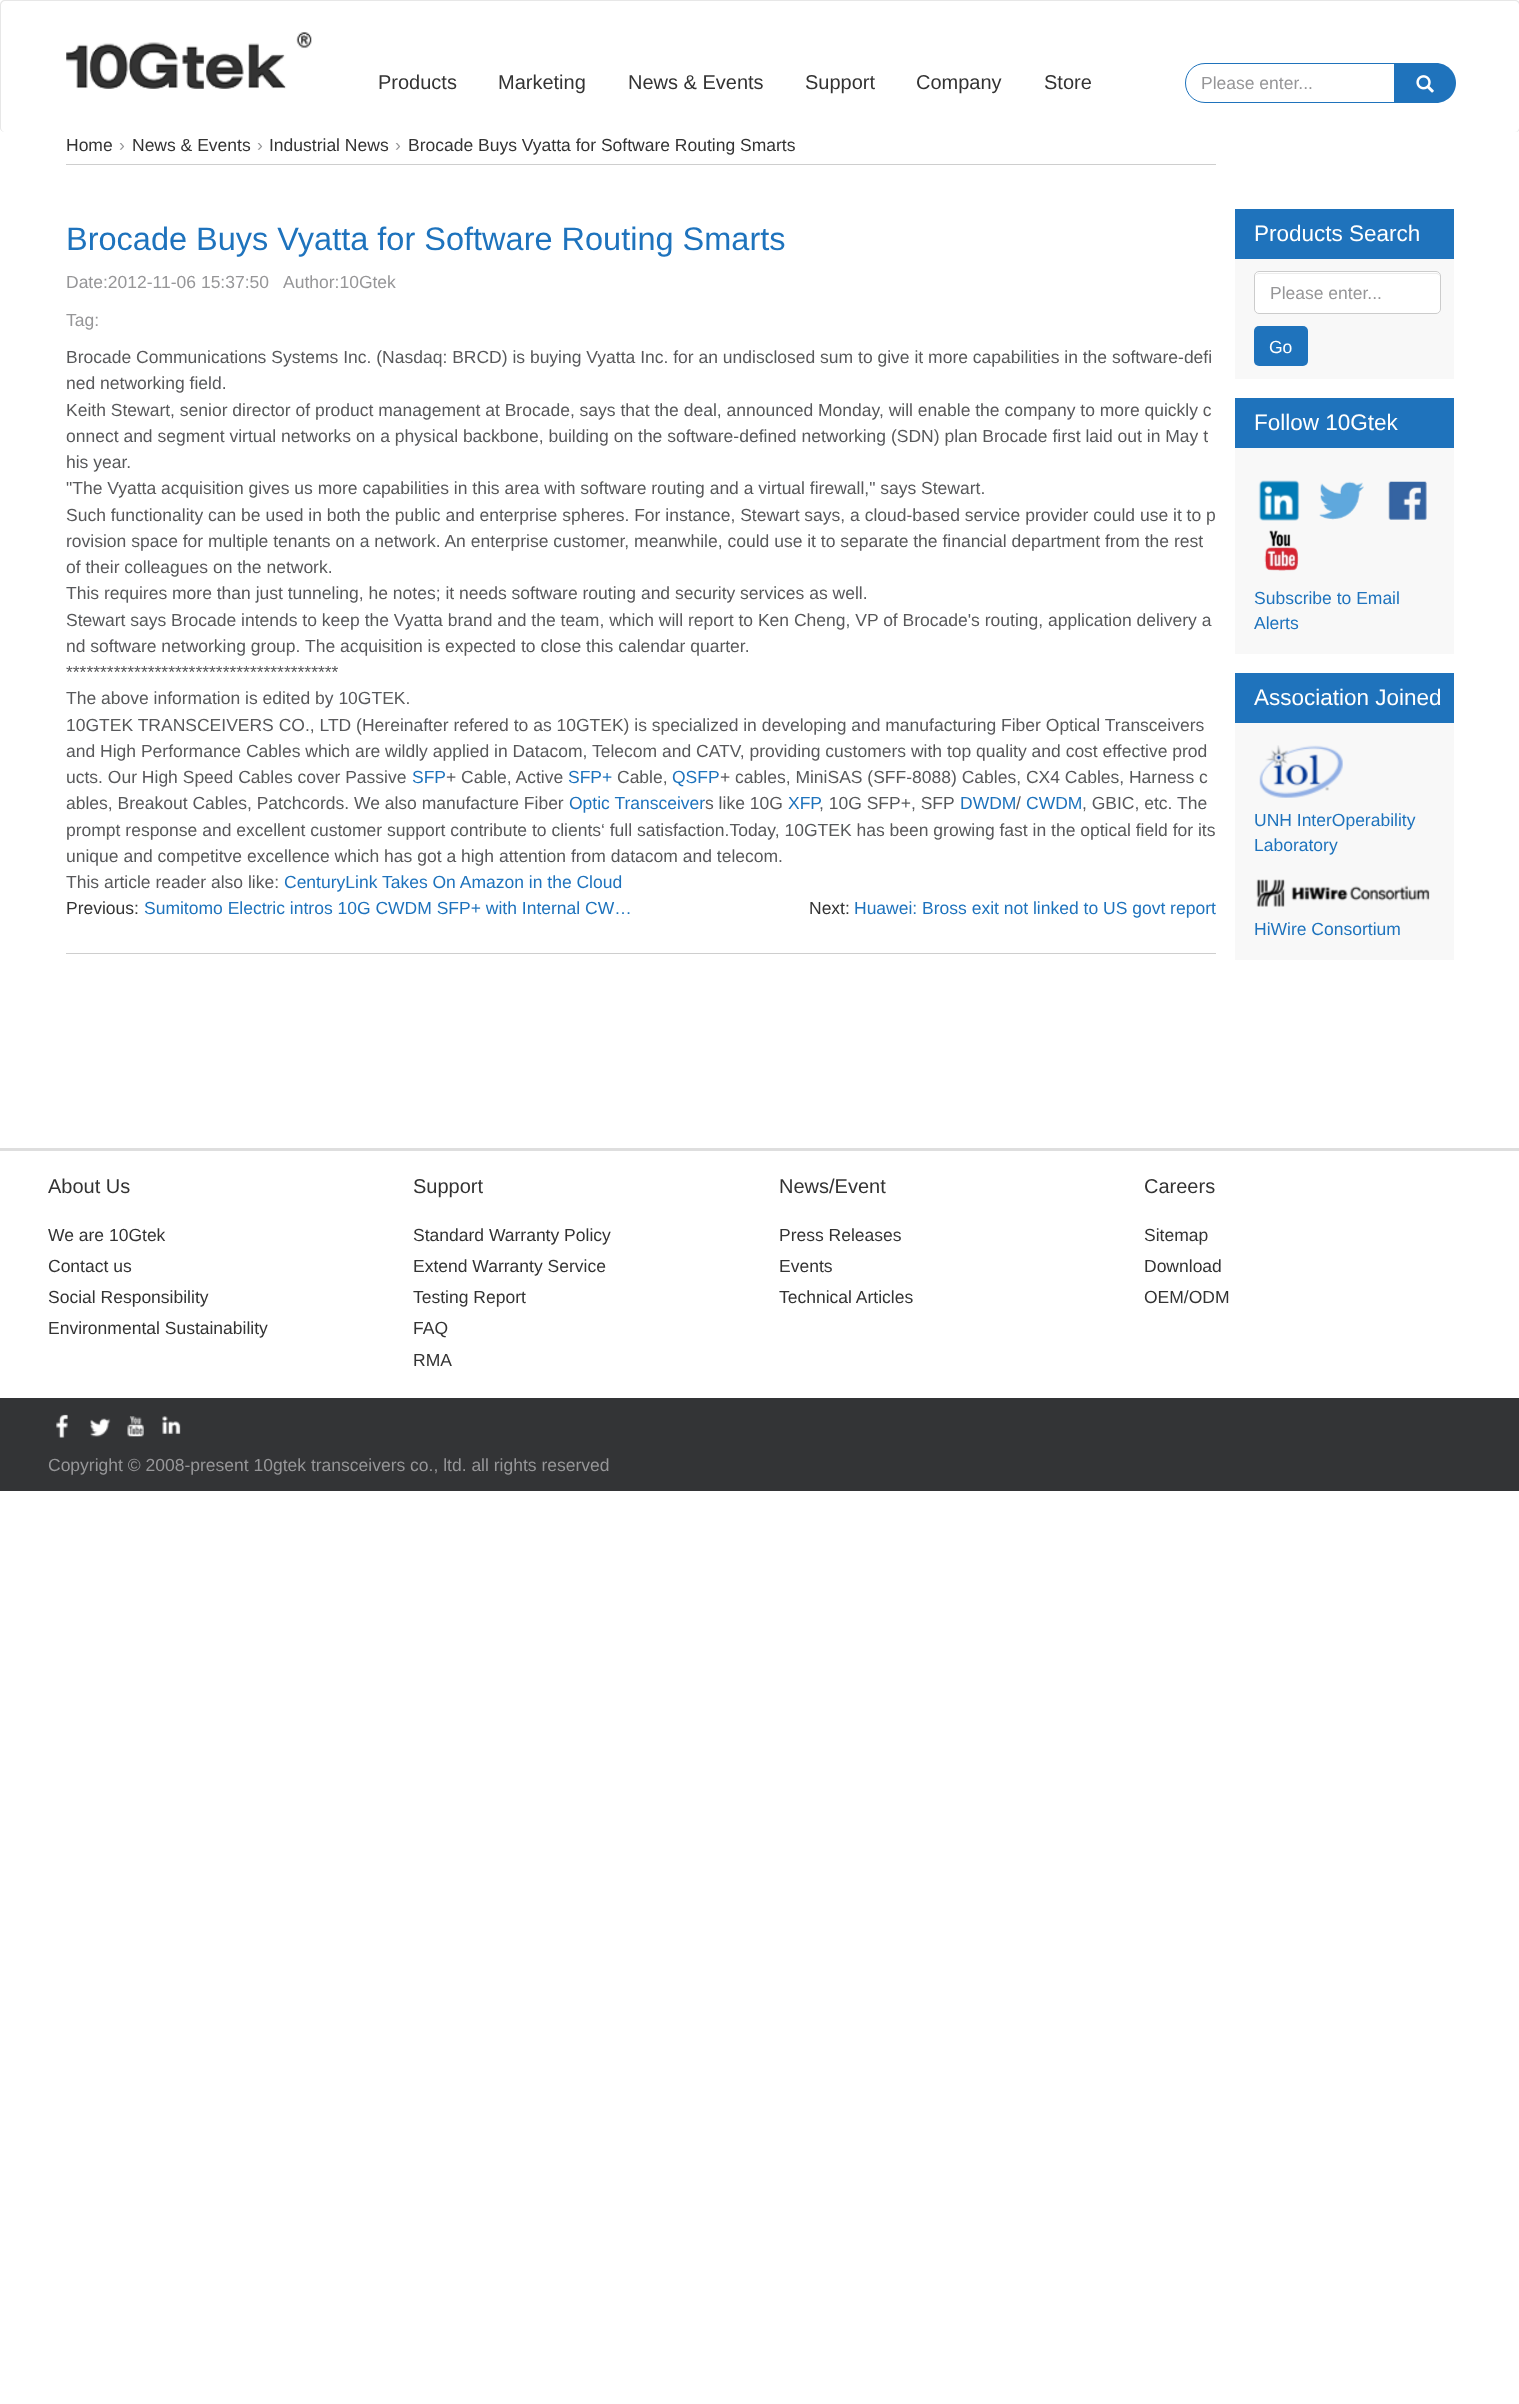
<svg xmlns="http://www.w3.org/2000/svg" width="1519" height="2404" viewBox="0 0 1519 2404">
  <rect width="100%" height="100%" fill="#ffffff"/>
  <path d="M5 0H1515C1518 0 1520 2 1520 5V128C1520 130 1518 132 1515 132H5C2 132 0 130 0 128V5C0 2 2 0 5 0ZM5 1H1515C1517 1 1519 3 1519 5V128C1519 130 1517 132 1515 132H5C3 132 1 130 1 128V5C1 3 3 1 5 1Z" fill="#e7e7e7" fill-rule="evenodd"/>
  <image x="66" y="32" width="246" height="57" href="img1.png"/>
  <text x="378" y="89" font-family="Liberation Sans" font-size="20" fill="#333333">Products</text>
  <text x="498" y="89" font-family="Liberation Sans" font-size="20" fill="#333333">Marketing</text>
  <text x="628" y="89" font-family="Liberation Sans" font-size="20" fill="#333333">News &amp; Events</text>
  <text x="805" y="89" font-family="Liberation Sans" font-size="20" fill="#333333">Support</text>
  <text x="916" y="89" font-family="Liberation Sans" font-size="20" fill="#333333">Company</text>
  <text x="1044" y="89" font-family="Liberation Sans" font-size="20" fill="#333333">Store</text>
  <path d="M1205 63.5H1432C1433.5 63.5 1434.5 64.5 1434.5 66V100C1434.5 101.5 1433.5 102.5 1432 102.5H1205C1194 102.5 1185.5 94 1185.5 83C1185.5 72 1194 63.5 1205 63.5Z" fill="none" stroke="#1f73bc"/>
  <text x="1201" y="89" font-family="Liberation Sans" font-size="17.5" fill="#969698">Please enter...</text>
  <path d="M1394 63H1436C1447 63 1456 72 1456 83C1456 94 1447 103 1436 103H1394Z" fill="#1f73bc"/>
  <image x="1416" y="75" width="18" height="18" href="img2.png"/>
  <rect x="66" y="164" width="1150" height="1" fill="#cecece"/>
  <text x="66" y="151" font-family="Liberation Sans" font-size="17.5" fill="#333333">Home</text>
  <text x="119" y="151" font-family="Liberation Sans" font-size="17.5" fill="#969698">›</text>
  <text x="132" y="151" font-family="Liberation Sans" font-size="17.5" fill="#333333">News &amp; Events</text>
  <text x="257" y="151" font-family="Liberation Sans" font-size="17.5" fill="#969698">›</text>
  <text x="269" y="151" font-family="Liberation Sans" font-size="17.5" fill="#333333">Industrial News</text>
  <text x="395" y="151" font-family="Liberation Sans" font-size="17.5" fill="#969698">›</text>
  <text x="408" y="151" font-family="Liberation Sans" font-size="17.5" fill="#333333">Brocade Buys Vyatta for Software Routing Smarts</text>
  <rect x="66" y="953" width="1150" height="1" fill="#cecece"/>
  <text x="66" y="250" font-family="Liberation Sans" font-size="32.5" fill="#1e73bd">Brocade Buys Vyatta for Software Routing Smarts</text>
  <text x="66" y="288" font-family="Liberation Sans" font-size="17.5" fill="#969698">Date:2012-11-06 15:37:50</text>
  <text x="283" y="288" font-family="Liberation Sans" font-size="17.5" fill="#969698">Author:10Gtek</text>
  <text x="66" y="326" font-family="Liberation Sans" font-size="17.5" fill="#969698">Tag:</text>
  <text x="66" y="363" font-family="Liberation Sans" font-size="17.5" fill="#58595b">Brocade Communications Systems Inc. (Nasdaq: BRCD) is buying Vyatta Inc. for an undisclosed sum to give it more capabilities in the software-defi</text>
  <text x="66" y="389" font-family="Liberation Sans" font-size="17.5" fill="#58595b">ned networking field.</text>
  <text x="66" y="416" font-family="Liberation Sans" font-size="17.5" fill="#58595b">Keith Stewart, senior director of product management at Brocade, says that the deal, announced Monday, will enable the company to more quickly c</text>
  <text x="66" y="442" font-family="Liberation Sans" font-size="17.5" fill="#58595b">onnect and segment virtual networks on a physical backbone, building on the software-defined networking (SDN) plan Brocade first laid out in May t</text>
  <text x="66" y="468" font-family="Liberation Sans" font-size="17.5" fill="#58595b">his year.</text>
  <text x="66" y="494" font-family="Liberation Sans" font-size="17.5" fill="#58595b">"The Vyatta acquisition gives us more capabilities in this area with software routing and a virtual firewall," says Stewart.</text>
  <text x="66" y="521" font-family="Liberation Sans" font-size="17.5" fill="#58595b">Such functionality can be used in both the public and enterprise spheres. For instance, Stewart says, a cloud-based service provider could use it to p</text>
  <text x="66" y="547" font-family="Liberation Sans" font-size="17.5" fill="#58595b">rovision space for multiple tenants on a network. An enterprise customer, meanwhile, could use it to separate the financial department from the rest</text>
  <text x="66" y="573" font-family="Liberation Sans" font-size="17.5" fill="#58595b">of their colleagues on the network.</text>
  <text x="66" y="599" font-family="Liberation Sans" font-size="17.5" fill="#58595b">This requires more than just tunneling, he notes; it needs software routing and security services as well.</text>
  <text x="66" y="626" font-family="Liberation Sans" font-size="17.5" fill="#58595b">Stewart says Brocade intends to keep the Vyatta brand and the team, which will report to Ken Cheng, VP of Brocade's routing, application delivery a</text>
  <text x="66" y="652" font-family="Liberation Sans" font-size="17.5" fill="#58595b">nd software networking group. The acquisition is expected to close this calendar quarter.</text>
  <text x="66" y="678" font-family="Liberation Sans" font-size="17.5" fill="#58595b">****************************************</text>
  <text x="66" y="704" font-family="Liberation Sans" font-size="17.5" fill="#58595b">The above information is edited by 10GTEK.</text>
  <text x="66" y="731" font-family="Liberation Sans" font-size="17.5" fill="#58595b">10GTEK TRANSCEIVERS CO., LTD (Hereinafter refered to as 10GTEK) is specialized in developing and manufacturing Fiber Optical Transceivers</text>
  <text x="66" y="757" font-family="Liberation Sans" font-size="17.5" fill="#58595b">and High Performance Cables which are wildly applied in Datacom, Telecom and CATV, providing customers with top quality and cost effective prod</text>
  <text x="66" y="783" font-family="Liberation Sans" font-size="17.5" fill="#58595b">ucts. Our High Speed Cables cover Passive</text>
  <text x="412" y="783" font-family="Liberation Sans" font-size="17.5" fill="#1e73bd">SFP</text>
  <text x="446" y="783" font-family="Liberation Sans" font-size="17.5" fill="#58595b">+ Cable, Active</text>
  <text x="568" y="783" font-family="Liberation Sans" font-size="17.5" fill="#1e73bd">SFP+</text>
  <text x="617" y="783" font-family="Liberation Sans" font-size="17.5" fill="#58595b">Cable,</text>
  <text x="672" y="783" font-family="Liberation Sans" font-size="17.5" fill="#1e73bd">QSFP</text>
  <text x="720" y="783" font-family="Liberation Sans" font-size="17.5" fill="#58595b">+ cables, MiniSAS (SFF-8088) Cables, CX4 Cables, Harness c</text>
  <text x="66" y="809" font-family="Liberation Sans" font-size="17.5" fill="#58595b">ables, Breakout Cables, Patchcords. We also manufacture Fiber</text>
  <text x="569" y="809" font-family="Liberation Sans" font-size="17.5" fill="#1e73bd">Optic Transceiver</text>
  <text x="705" y="809" font-family="Liberation Sans" font-size="17.5" fill="#58595b">s like 10G</text>
  <text x="788" y="809" font-family="Liberation Sans" font-size="17.5" fill="#1e73bd">XFP</text>
  <text x="819" y="809" font-family="Liberation Sans" font-size="17.5" fill="#58595b">, 10G SFP+, SFP</text>
  <text x="960" y="809" font-family="Liberation Sans" font-size="17.5" fill="#1e73bd">DWDM</text>
  <text x="1016" y="809" font-family="Liberation Sans" font-size="17.5" fill="#58595b">/</text>
  <text x="1026" y="809" font-family="Liberation Sans" font-size="17.5" fill="#1e73bd">CWDM</text>
  <text x="1082" y="809" font-family="Liberation Sans" font-size="17.5" fill="#58595b">, GBIC, etc. The</text>
  <text x="66" y="836" font-family="Liberation Sans" font-size="17.5" fill="#58595b">prompt response and excellent customer support contribute to clients‘ full satisfaction.Today, 10GTEK has been growing fast in the optical field for its</text>
  <text x="66" y="862" font-family="Liberation Sans" font-size="17.5" fill="#58595b">unique and competitve excellence which has got a high attention from datacom and telecom.</text>
  <text x="66" y="888" font-family="Liberation Sans" font-size="17.5" fill="#58595b">This article reader also like:</text>
  <text x="284" y="888" font-family="Liberation Sans" font-size="17.5" fill="#1e73bd">CenturyLink Takes On Amazon in the Cloud</text>
  <text x="66" y="914" font-family="Liberation Sans" font-size="17.5" fill="#333333">Previous:</text>
  <text x="144" y="914" font-family="Liberation Sans" font-size="17.5" fill="#1e73bd">Sumitomo Electric intros 10G CWDM SFP+ with Internal CW…</text>
  <text x="809" y="914" font-family="Liberation Sans" font-size="17.5" fill="#333333">Next:</text>
  <text x="854" y="914" font-family="Liberation Sans" font-size="17.5" fill="#1e73bd">Huawei: Bross exit not linked to US govt report</text>
  <rect x="1235" y="259" width="219" height="120" fill="#f8f8f8"/>
  <rect x="1235" y="209" width="219" height="50" fill="#1f73bc"/>
  <text x="1254" y="241" font-family="Liberation Sans" font-size="22.5" fill="#ffffff">Products Search</text>
  <rect x="1254" y="271" width="187" height="43" rx="5" fill="#ffffff"/>
  <path d="M1259 274H1436C1438 274 1440 275 1440 278C1440 275 1439 273 1436 273H1258C1256 274 1255 276 1255 278C1255 275 1257 274 1259 274Z" fill="#ececec"/>
  <rect x="1254.5" y="271.5" width="186" height="42" rx="4.5" fill="none" stroke="#cccccc"/>
  <text x="1270" y="299" font-family="Liberation Sans" font-size="17.5" fill="#969698">Please enter...</text>
  <rect x="1254" y="326" width="54" height="40" rx="5" fill="#1f73bc"/>
  <text x="1269" y="353" font-family="Liberation Sans" font-size="17.5" fill="#ffffff">Go</text>
  <rect x="1235" y="448" width="219" height="206" fill="#f8f8f8"/>
  <rect x="1235" y="398" width="219" height="50" fill="#1f73bc"/>
  <text x="1254" y="430" font-family="Liberation Sans" font-size="22.5" fill="#ffffff">Follow 10Gtek</text>
  <image x="1258" y="480" width="42" height="41" href="img3.png"/>
  <image x="1319" y="481" width="45" height="39" href="img4.png"/>
  <image x="1388" y="481" width="39" height="39" href="img5.png"/>
  <image x="1264" y="530" width="35" height="41" href="img6.png"/>
  <text x="1254" y="604" font-family="Liberation Sans" font-size="17.5" fill="#1e73bd">Subscribe to Email</text>
  <text x="1254" y="629" font-family="Liberation Sans" font-size="17.5" fill="#1e73bd">Alerts</text>
  <rect x="1235" y="723" width="219" height="237" fill="#f8f8f8"/>
  <rect x="1235" y="673" width="219" height="50" fill="#1f73bc"/>
  <text x="1254" y="705" font-family="Liberation Sans" font-size="22.5" fill="#ffffff">Association Joined</text>
  <image x="1259" y="745" width="84" height="53" href="img7.png"/>
  <text x="1254" y="826" font-family="Liberation Sans" font-size="17.5" fill="#1e73bd">UNH InterOperability</text>
  <text x="1254" y="851" font-family="Liberation Sans" font-size="17.5" fill="#1e73bd">Laboratory</text>
  <image x="1256" y="879" width="174" height="28" href="img8.png"/>
  <text x="1254" y="935" font-family="Liberation Sans" font-size="17.5" fill="#1e73bd">HiWire Consortium</text>
  <rect x="0" y="1148" width="1519" height="3" fill="#dedede"/>
  <text x="48" y="1193" font-family="Liberation Sans" font-size="20" fill="#333333">About Us</text>
  <text x="48" y="1241" font-family="Liberation Sans" font-size="17.5" fill="#333333">We are 10Gtek</text>
  <text x="48" y="1272" font-family="Liberation Sans" font-size="17.5" fill="#333333">Contact us</text>
  <text x="48" y="1303" font-family="Liberation Sans" font-size="17.5" fill="#333333">Social Responsibility</text>
  <text x="48" y="1334" font-family="Liberation Sans" font-size="17.5" fill="#333333">Environmental Sustainability</text>
  <text x="413" y="1193" font-family="Liberation Sans" font-size="20" fill="#333333">Support</text>
  <text x="413" y="1241" font-family="Liberation Sans" font-size="17.5" fill="#333333">Standard Warranty Policy</text>
  <text x="413" y="1272" font-family="Liberation Sans" font-size="17.5" fill="#333333">Extend Warranty Service</text>
  <text x="413" y="1303" font-family="Liberation Sans" font-size="17.5" fill="#333333">Testing Report</text>
  <text x="413" y="1334" font-family="Liberation Sans" font-size="17.5" fill="#333333">FAQ</text>
  <text x="413" y="1366" font-family="Liberation Sans" font-size="17.5" fill="#333333">RMA</text>
  <text x="779" y="1193" font-family="Liberation Sans" font-size="20" fill="#333333">News/Event</text>
  <text x="779" y="1241" font-family="Liberation Sans" font-size="17.5" fill="#333333">Press Releases</text>
  <text x="779" y="1272" font-family="Liberation Sans" font-size="17.5" fill="#333333">Events</text>
  <text x="779" y="1303" font-family="Liberation Sans" font-size="17.5" fill="#333333">Technical Articles</text>
  <text x="1144" y="1193" font-family="Liberation Sans" font-size="20" fill="#333333">Careers</text>
  <text x="1144" y="1241" font-family="Liberation Sans" font-size="17.5" fill="#333333">Sitemap</text>
  <text x="1144" y="1272" font-family="Liberation Sans" font-size="17.5" fill="#333333">Download</text>
  <text x="1144" y="1303" font-family="Liberation Sans" font-size="17.5" fill="#333333">OEM/ODM</text>
  <rect x="0" y="1398" width="1519" height="93" fill="#333436"/>
  <image x="56" y="1414" width="12" height="24" href="img9.png"/>
  <image x="90" y="1418" width="21" height="19" href="img10.png"/>
  <image x="127" y="1416" width="17" height="21" href="img11.png"/>
  <image x="162" y="1416" width="19" height="18" href="img12.png"/>
  <text x="48" y="1471" font-family="Liberation Sans" font-size="17.5" fill="#969698">Copyright © 2008-present 10gtek transceivers co., ltd. all rights reserved</text>
</svg>
